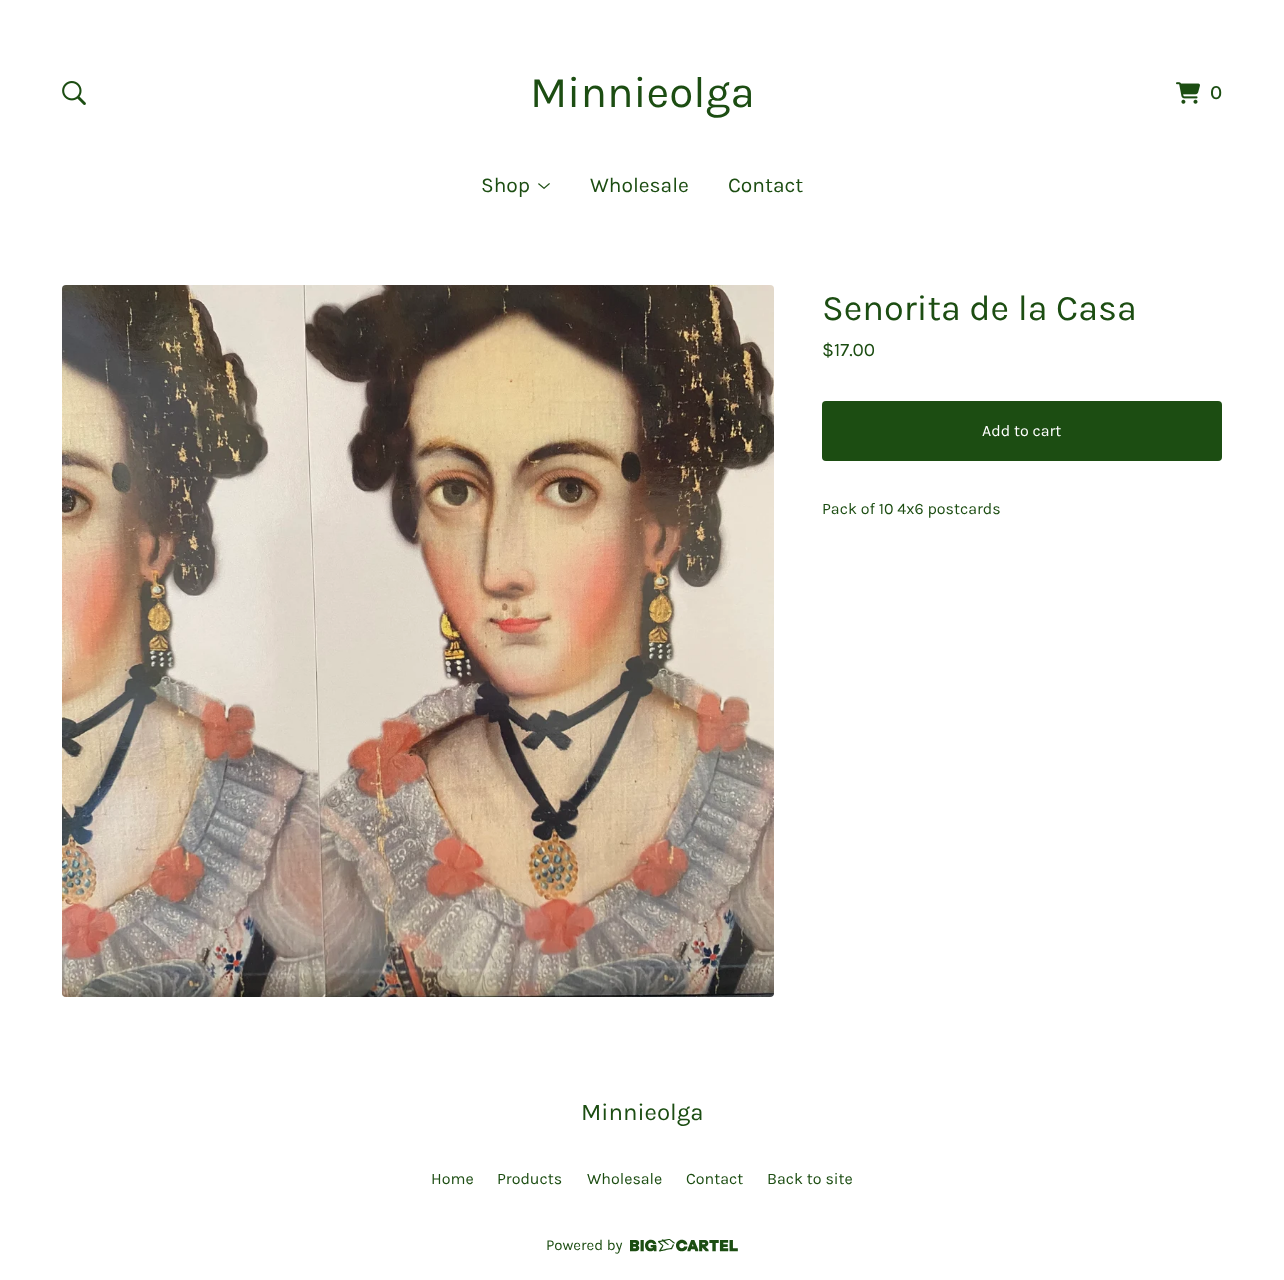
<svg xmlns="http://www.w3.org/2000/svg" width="1284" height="1280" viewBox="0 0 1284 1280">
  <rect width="100%" height="100%" fill="#ffffff"/>
  <image x="62" y="81" width="24" height="24" href="img1.png"/>
  <text x="530" y="107" font-family="Karla" font-size="44" fill="#1c4d12">Minnieolga</text>
  <image x="1176" y="82" width="24" height="22" href="img2.png"/>
  <text x="1210" y="99" font-family="Karla" font-size="20" font-weight="500" fill="#1c4d12">0</text>
  <text x="481" y="192" font-family="Karla" font-size="21" fill="#1c4d12">Shop</text>
  <image x="538" y="183" width="12" height="6" href="img3.png"/>
  <text x="590" y="192" font-family="Karla" font-size="21" fill="#1c4d12">Wholesale</text>
  <text x="728" y="192" font-family="Karla" font-size="21" fill="#1c4d12">Contact</text>
  <image x="62" y="285" width="712" height="712" href="img4.png"/>
  <text x="822" y="320" font-family="Karla" font-size="36" fill="#1c4d12">Senorita de la Casa</text>
  <text x="822" y="356" font-family="Karla" font-size="19" fill="#1c4d12">$17.00</text>
  <rect x="822" y="401" width="400" height="60" rx="4" fill="#1c4d12"/>
  <text x="982" y="436" font-family="Karla" font-size="16" fill="#ffffff">Add to cart</text>
  <text x="822" y="514" font-family="Karla" font-size="16" fill="#1c4d12">Pack of 10 4x6 postcards</text>
  <text x="581" y="1120" font-family="Karla" font-size="24" fill="#1c4d12">Minnieolga</text>
  <text x="431" y="1184" font-family="Karla" font-size="16" fill="#1c4d12">Home</text>
  <text x="497" y="1184" font-family="Karla" font-size="16" fill="#1c4d12">Products</text>
  <text x="587" y="1184" font-family="Karla" font-size="16" fill="#1c4d12">Wholesale</text>
  <text x="686" y="1184" font-family="Karla" font-size="16" fill="#1c4d12">Contact</text>
  <text x="767" y="1184" font-family="Karla" font-size="16" fill="#1c4d12">Back to site</text>
  <text x="546" y="1250" font-family="Karla" font-size="15" fill="#1c4d12">Powered by</text>
  <image x="630" y="1239" width="108" height="13" href="img5.png"/>
</svg>
